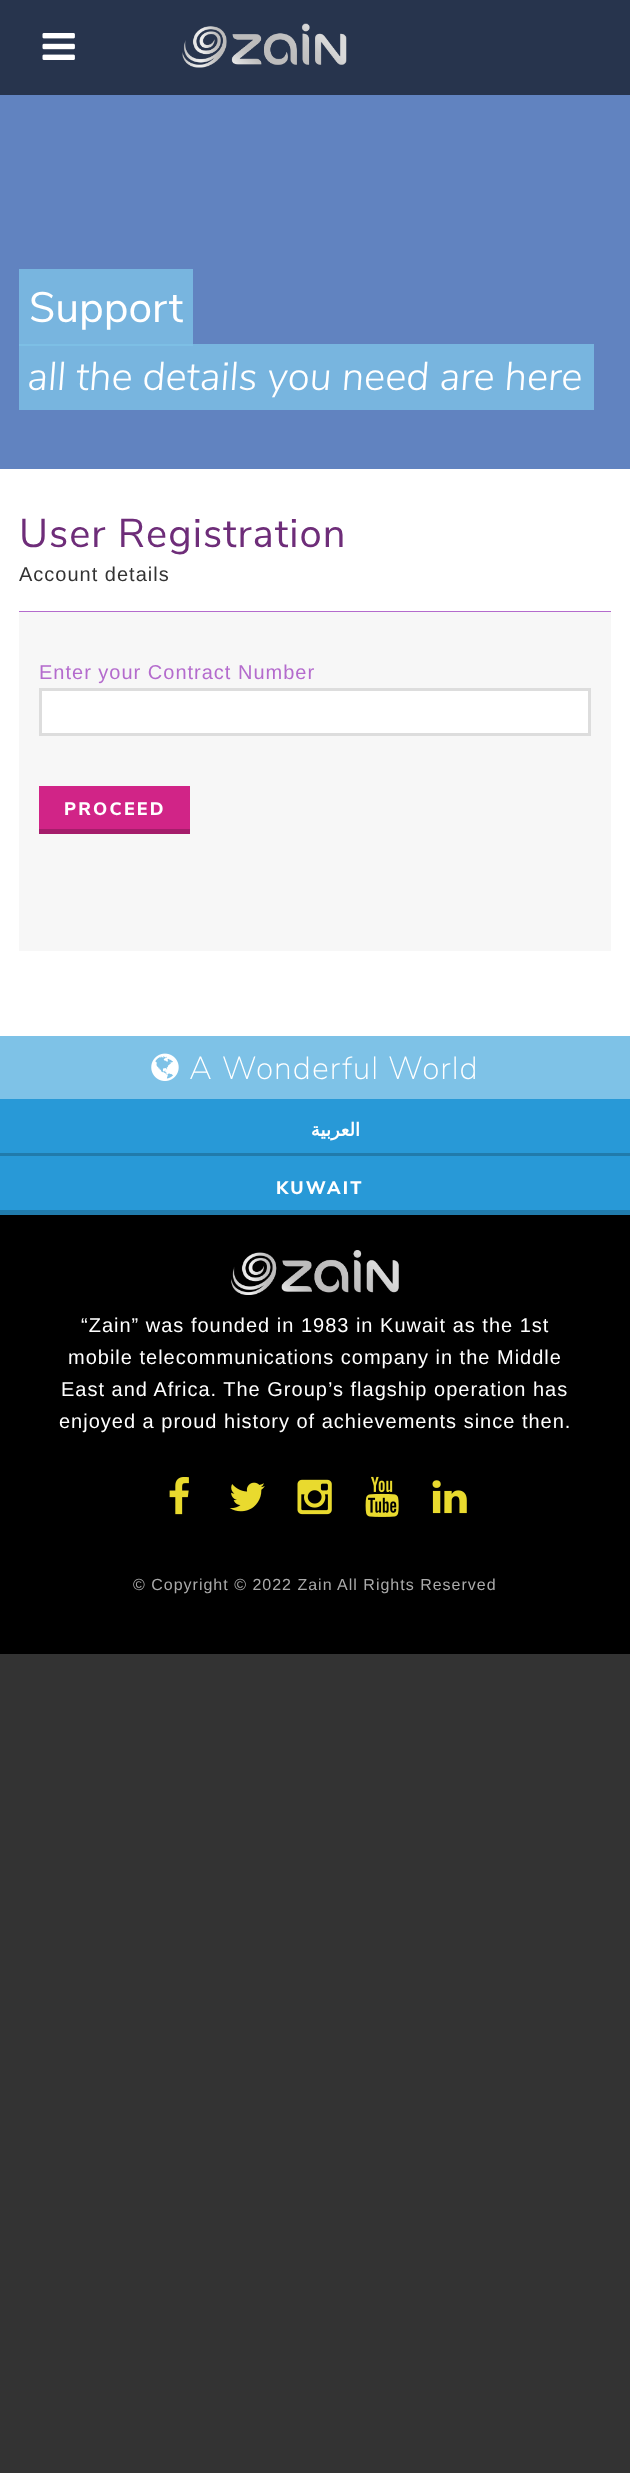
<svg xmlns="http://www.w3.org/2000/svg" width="630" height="2473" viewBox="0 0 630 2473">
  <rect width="100%" height="100%" fill="#333333"/>
  <rect x="0" y="0" width="630" height="95" fill="#27344d"/>
  <image x="42" y="33" width="33" height="27" href="img1.png"/>
  <image x="182" y="23" width="165" height="45" href="img2.png"/>
  <rect x="0" y="95" width="630" height="374" fill="#6183c0"/>
  <rect x="19" y="344" width="575" height="66" fill="#78b5df"/>
  <rect x="19" y="269" width="174" height="75" fill="#78b5df"/>
  <text x="29" y="322" font-family="Nunito Sans" font-size="42.5" fill="#ffffff">Support</text>
  <rect x="19" y="344" width="174" height="2" fill="#7dbfe5"/>
  <text x="27" y="390" font-family="Nunito Sans" font-size="40" font-weight="300" font-style="italic" fill="#ffffff">all the details you need are here</text>
  <rect x="0" y="469" width="630" height="567" fill="#ffffff"/>
  <text x="19" y="547" font-family="Nunito Sans" font-size="40" letter-spacing="1" fill="#6e2d79">User Registration</text>
  <text x="19" y="581" font-family="Liberation Sans" font-size="20" letter-spacing="1" fill="#333333">Account details</text>
  <rect x="19" y="612" width="592" height="339" fill="#f7f7f7"/>
  <rect x="19" y="611" width="592" height="1" fill="#b46bcd"/>
  <text x="39" y="679" font-family="Liberation Sans" font-size="20" letter-spacing="1" fill="#b46bcd">Enter your Contract Number</text>
  <rect x="40.5" y="689.5" width="549" height="45" fill="#ffffff" stroke="#dddddd" stroke-width="3"/>
  <rect x="39" y="829" width="151" height="5" fill="#a51d6b"/>
  <rect x="39" y="786" width="151" height="43" fill="#d12487"/>
  <text x="64" y="815" font-family="Nunito Sans" font-size="18" font-weight="800" letter-spacing="2.25" fill="#ffffff">PROCEED</text>
  <rect x="0" y="1036" width="630" height="63" fill="#7ec2e7"/>
  <image x="151" y="1053" width="28" height="28" href="img3.png"/>
  <text x="189" y="1079" font-family="Nunito Sans" font-size="32" font-weight="200" letter-spacing="1" fill="#ffffff">A Wonderful World</text>
  <rect x="0" y="1153" width="630" height="3" fill="#207bac"/>
  <rect x="0" y="1099" width="630" height="54" fill="#2899d7"/>
  <text x="360" y="1136" font-family="DejaVu Sans" font-size="18" font-weight="bold" letter-spacing="2.25" direction="rtl" fill="#ffffff">العربية</text>
  <rect x="0" y="1210" width="630" height="5" fill="#207bac"/>
  <rect x="0" y="1156" width="630" height="54" fill="#2899d7"/>
  <text x="276" y="1194" font-family="Nunito Sans" font-size="18" font-weight="800" letter-spacing="2.25" fill="#ffffff">KUWAIT</text>
  <rect x="0" y="1215" width="630" height="439" fill="#000000"/>
  <image x="231" y="1250" width="168" height="45" href="img4.png"/>
  <text x="81" y="1332" font-family="Liberation Sans" font-size="20" letter-spacing="1" fill="#ffffff">“Zain” was founded in 1983 in Kuwait as the 1st</text>
  <text x="68" y="1364" font-family="Liberation Sans" font-size="20" letter-spacing="1" fill="#ffffff">mobile telecommunications company in the Middle</text>
  <text x="61" y="1396" font-family="Liberation Sans" font-size="20" letter-spacing="1" fill="#ffffff">East and Africa. The Group’s flagship operation has</text>
  <text x="59" y="1428" font-family="Liberation Sans" font-size="20" letter-spacing="1" fill="#ffffff">enjoyed a proud history of achievements since then.</text>
  <image x="169" y="1477" width="20" height="38" href="img5.png"/>
  <image x="229" y="1482" width="36" height="30" href="img6.png"/>
  <image x="297" y="1479" width="35" height="36" href="img7.png"/>
  <image x="365" y="1476" width="34" height="41" href="img8.png"/>
  <image x="432" y="1480" width="35" height="34" href="img9.png"/>
  <text x="133" y="1590" font-family="Liberation Sans" font-size="16" letter-spacing="1" fill="#aaaaaa">© Copyright © 2022 Zain All Rights Reserved</text>
</svg>
